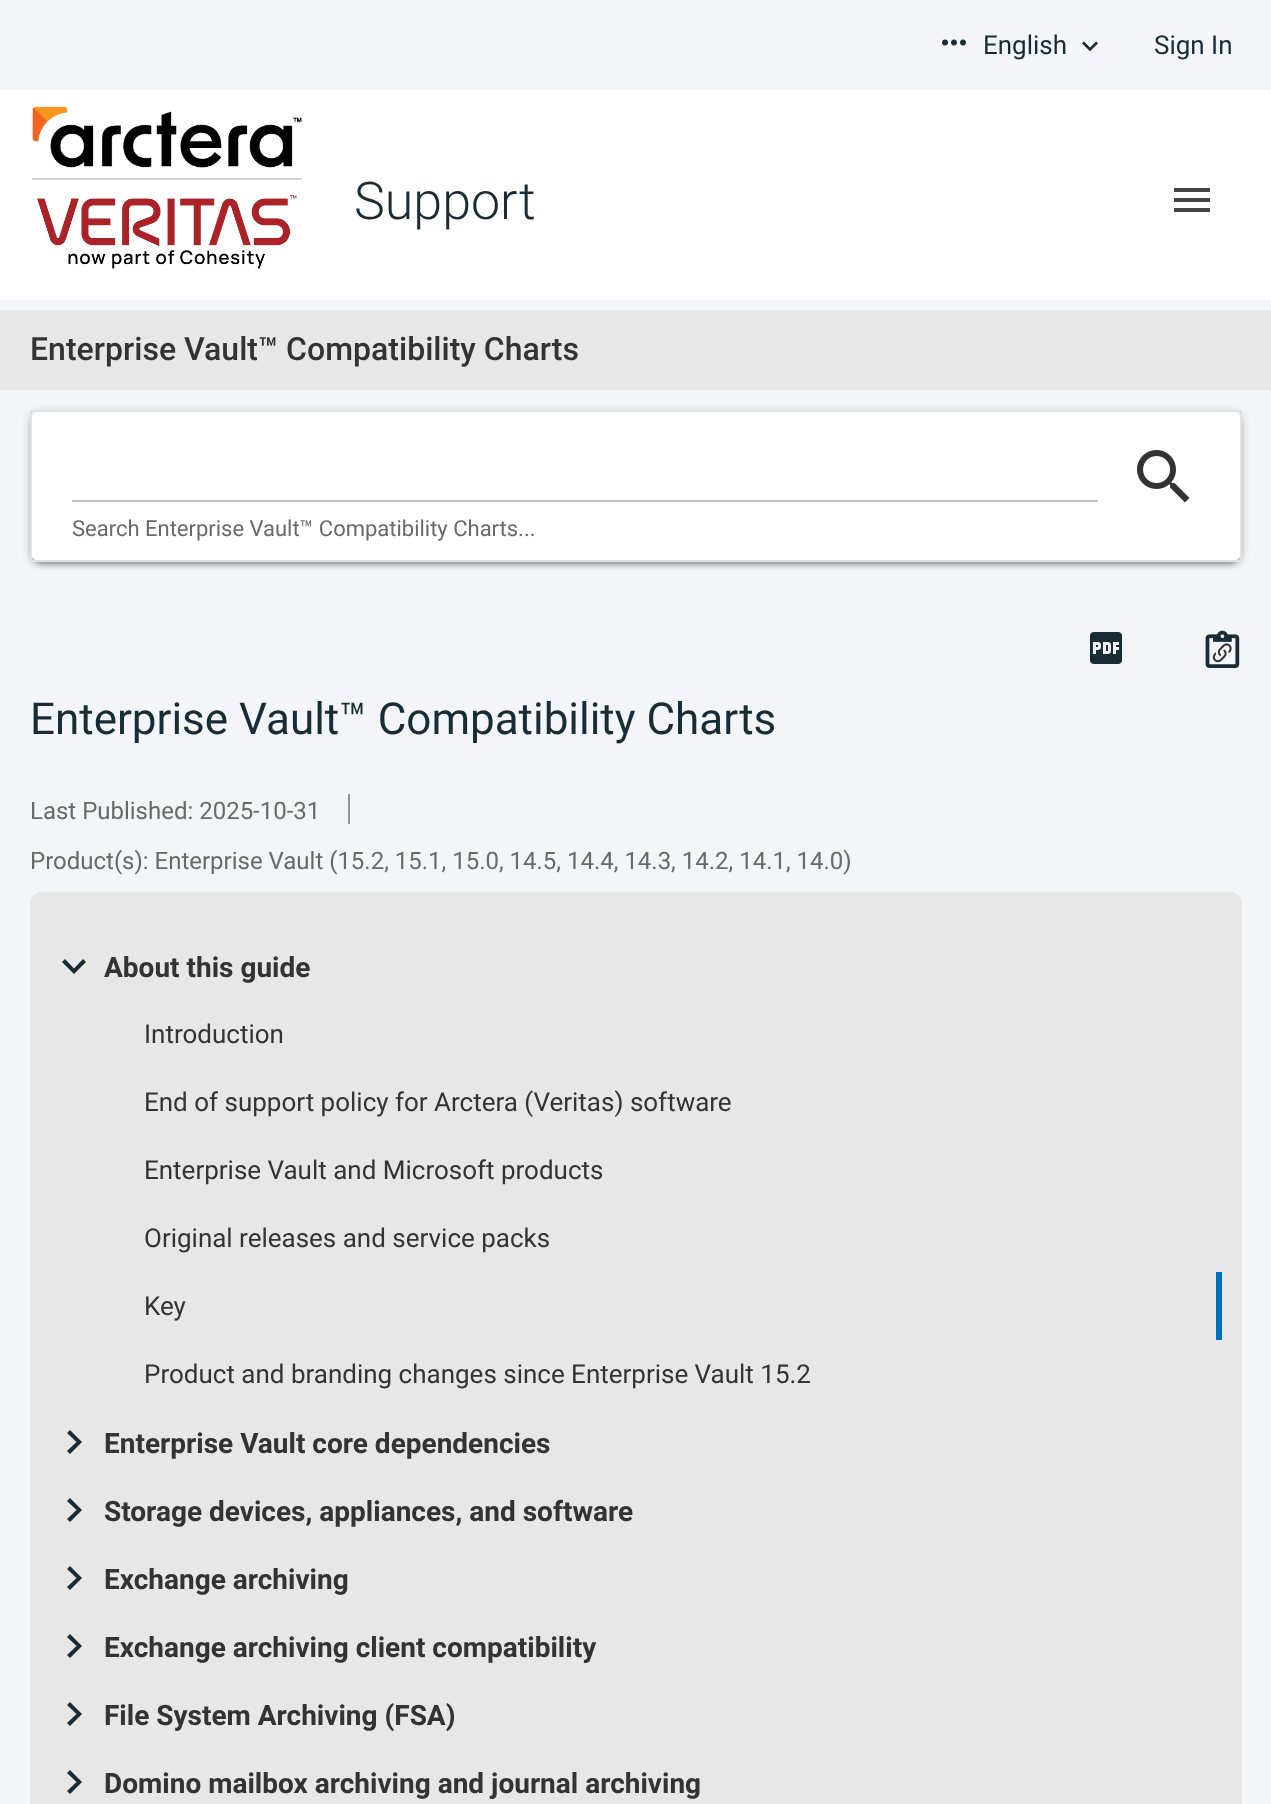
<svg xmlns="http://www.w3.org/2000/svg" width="1271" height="1804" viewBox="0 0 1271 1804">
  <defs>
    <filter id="blur1" x="-50%" y="-200%" width="200%" height="500%"><feGaussianBlur stdDeviation="1"/></filter>
    <filter id="blur2" x="-50%" y="-200%" width="200%" height="500%"><feGaussianBlur stdDeviation="2"/></filter>
    <filter id="blur3" x="-50%" y="-200%" width="200%" height="500%"><feGaussianBlur stdDeviation="5"/></filter>
  </defs>
  <rect width="100%" height="100%" fill="#f4f5f8"/>
  <image x="942" y="39" width="24" height="7" href="img1.png"/>
  <text x="983" y="54" font-family="Roboto" font-size="26" fill="#182c35">English</text>
  <image x="1082" y="41" width="16" height="11" href="img2.png"/>
  <text x="1154" y="54" font-family="Roboto" font-size="26" fill="#182c35">Sign In</text>
  <rect x="0" y="90" width="1271" height="210" fill="#ffffff"/>
  <image x="32" y="106" width="270" height="62" href="img3.png"/>
  <rect x="32" y="178" width="270" height="2" fill="#d5d5d5"/>
  <image x="37" y="195" width="260" height="74" href="img4.png"/>
  <text x="354" y="219" font-family="Roboto" font-size="52" font-weight="300" fill="#182c35">Support</text>
  <path d="M1174 188H1210V192H1174ZM1174 198H1210V202H1174ZM1174 208H1210V212H1174Z" fill="#434343"/>
  <rect x="0" y="310" width="1271" height="80" fill="#e7e7e7"/>
  <text x="30" y="360" font-family="Roboto" font-size="32" font-weight="500" fill="#333333">Enterprise Vault™ Compatibility Charts</text>
  <rect x="34" y="420" width="1204" height="144" rx="8" fill="#000000" fill-opacity="0.12" filter="url(#blur1)"/>
  <rect x="30" y="414" width="1212" height="152" rx="12" fill="#000000" fill-opacity="0.14" filter="url(#blur2)"/>
  <rect x="30" y="412" width="1212" height="152" rx="12" fill="#000000" fill-opacity="0.2" filter="url(#blur3)"/>
  <rect x="30" y="410" width="1212" height="152" rx="12" fill="#ffffff"/>
  <rect x="31" y="411" width="1210" height="150" fill="none" stroke="#dee2e6" stroke-width="2"/>
  <rect x="72" y="500" width="1026" height="2" fill="#c2c2c2"/>
  <image x="1137" y="450" width="53" height="53" href="img5.png"/>
  <text x="72" y="536" font-family="Roboto" font-size="22" fill="#696969">Search Enterprise Vault™ Compatibility Charts...</text>
  <image x="1089" y="632" width="34" height="32" href="img6.png"/>
  <image x="1205" y="630" width="35" height="38" href="img7.png"/>
  <image x="1212" y="643" width="20" height="20" href="img8.png"/>
  <text x="30" y="734" font-family="Roboto" font-size="44" fill="#182c35">Enterprise Vault™ Compatibility Charts</text>
  <text x="30" y="819" font-family="Roboto" font-size="24" fill="#696969">Last Published: 2025-10-31</text>
  <rect x="348" y="794" width="2" height="30" fill="#939393"/>
  <text x="30" y="869" font-family="Roboto" font-size="24" fill="#696969">Product(s): Enterprise Vault (15.2, 15.1, 15.0, 14.5, 14.4, 14.3, 14.2, 14.1, 14.0)</text>
  <rect x="30" y="892" width="1212" height="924" rx="12" fill="#e7e7e7"/>
  <path d="M65 959L74 968.5L83 959L86 962L74 974L62 962Z" fill="#182c35"/>
  <text x="104" y="977" font-family="Roboto" font-size="28" font-weight="bold" fill="#333333">About this guide</text>
  <text x="144" y="1043" font-family="Roboto" font-size="26" fill="#333333">Introduction</text>
  <text x="144" y="1111" font-family="Roboto" font-size="26" fill="#333333">End of support policy for Arctera (Veritas) software</text>
  <text x="144" y="1179" font-family="Roboto" font-size="26" fill="#333333">Enterprise Vault and Microsoft products</text>
  <text x="144" y="1247" font-family="Roboto" font-size="26" fill="#333333">Original releases and service packs</text>
  <rect x="1216" y="1272" width="6" height="68" fill="#0070bd"/>
  <text x="144" y="1315" font-family="Roboto" font-size="26" fill="#333333">Key</text>
  <text x="144" y="1383" font-family="Roboto" font-size="26" fill="#333333">Product and branding changes since Enterprise Vault 15.2</text>
  <path d="M67 1451L76.5 1442L67 1433L70 1430L82 1442L70 1454Z" fill="#182c35"/>
  <text x="104" y="1453" font-family="Roboto" font-size="28" font-weight="bold" fill="#333333">Enterprise Vault core dependencies</text>
  <path d="M67 1519L76.5 1510L67 1501L70 1498L82 1510L70 1522Z" fill="#182c35"/>
  <text x="104" y="1521" font-family="Roboto" font-size="28" font-weight="bold" fill="#333333">Storage devices, appliances, and software</text>
  <path d="M67 1587L76.5 1578L67 1569L70 1566L82 1578L70 1590Z" fill="#182c35"/>
  <text x="104" y="1589" font-family="Roboto" font-size="28" font-weight="bold" fill="#333333">Exchange archiving</text>
  <path d="M67 1655L76.5 1646L67 1637L70 1634L82 1646L70 1658Z" fill="#182c35"/>
  <text x="104" y="1657" font-family="Roboto" font-size="28" font-weight="bold" fill="#333333">Exchange archiving client compatibility</text>
  <path d="M67 1723L76.5 1714L67 1705L70 1702L82 1714L70 1726Z" fill="#182c35"/>
  <text x="104" y="1725" font-family="Roboto" font-size="28" font-weight="bold" fill="#333333">File System Archiving (FSA)</text>
  <path d="M67 1791L76.5 1782L67 1773L70 1770L82 1782L70 1794Z" fill="#182c35"/>
  <text x="104" y="1793" font-family="Roboto" font-size="28" font-weight="bold" fill="#333333">Domino mailbox archiving and journal archiving</text>
</svg>
